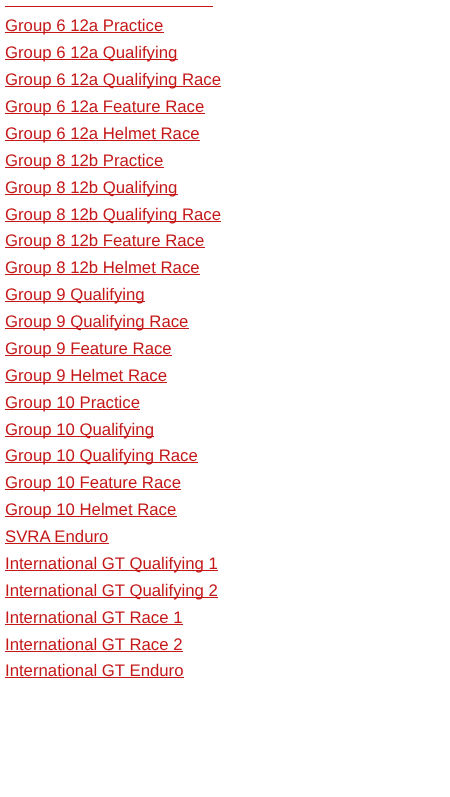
<svg xmlns="http://www.w3.org/2000/svg" width="450" height="797" viewBox="0 0 450 797">
  <rect width="100%" height="100%" fill="#ffffff"/>
  <rect x="5" y="6" width="208" height="1" fill="#c41819"/>
  <rect x="5" y="32" width="159" height="1" fill="#c41819"/>
  <text x="5" y="31" font-family="Liberation Sans" font-size="16.75" fill="#c41819">Group 6 12a Practice</text>
  <rect x="5" y="59" width="173" height="1" fill="#c41819"/>
  <text x="5" y="58" font-family="Liberation Sans" font-size="16.75" fill="#c41819">Group 6 12a Qualifying</text>
  <rect x="5" y="86" width="216" height="1" fill="#c41819"/>
  <text x="5" y="85" font-family="Liberation Sans" font-size="16.75" fill="#c41819">Group 6 12a Qualifying Race</text>
  <rect x="5" y="113" width="200" height="1" fill="#c41819"/>
  <text x="5" y="112" font-family="Liberation Sans" font-size="16.75" fill="#c41819">Group 6 12a Feature Race</text>
  <rect x="5" y="140" width="195" height="1" fill="#c41819"/>
  <text x="5" y="139" font-family="Liberation Sans" font-size="16.75" fill="#c41819">Group 6 12a Helmet Race</text>
  <rect x="5" y="167" width="159" height="1" fill="#c41819"/>
  <text x="5" y="166" font-family="Liberation Sans" font-size="16.75" fill="#c41819">Group 8 12b Practice</text>
  <rect x="5" y="194" width="173" height="1" fill="#c41819"/>
  <text x="5" y="193" font-family="Liberation Sans" font-size="16.75" fill="#c41819">Group 8 12b Qualifying</text>
  <rect x="5" y="221" width="216" height="1" fill="#c41819"/>
  <text x="5" y="220" font-family="Liberation Sans" font-size="16.75" fill="#c41819">Group 8 12b Qualifying Race</text>
  <rect x="5" y="247" width="200" height="1" fill="#c41819"/>
  <text x="5" y="246" font-family="Liberation Sans" font-size="16.75" fill="#c41819">Group 8 12b Feature Race</text>
  <rect x="5" y="274" width="195" height="1" fill="#c41819"/>
  <text x="5" y="273" font-family="Liberation Sans" font-size="16.75" fill="#c41819">Group 8 12b Helmet Race</text>
  <rect x="5" y="301" width="140" height="1" fill="#c41819"/>
  <text x="5" y="300" font-family="Liberation Sans" font-size="16.75" fill="#c41819">Group 9 Qualifying</text>
  <rect x="5" y="328" width="184" height="1" fill="#c41819"/>
  <text x="5" y="327" font-family="Liberation Sans" font-size="16.75" fill="#c41819">Group 9 Qualifying Race</text>
  <rect x="5" y="355" width="167" height="1" fill="#c41819"/>
  <text x="5" y="354" font-family="Liberation Sans" font-size="16.75" fill="#c41819">Group 9 Feature Race</text>
  <rect x="5" y="382" width="162" height="1" fill="#c41819"/>
  <text x="5" y="381" font-family="Liberation Sans" font-size="16.75" fill="#c41819">Group 9 Helmet Race</text>
  <rect x="5" y="409" width="135" height="1" fill="#c41819"/>
  <text x="5" y="408" font-family="Liberation Sans" font-size="16.75" fill="#c41819">Group 10 Practice</text>
  <rect x="5" y="436" width="149" height="1" fill="#c41819"/>
  <text x="5" y="435" font-family="Liberation Sans" font-size="16.75" fill="#c41819">Group 10 Qualifying</text>
  <rect x="5" y="462" width="193" height="1" fill="#c41819"/>
  <text x="5" y="461" font-family="Liberation Sans" font-size="16.75" fill="#c41819">Group 10 Qualifying Race</text>
  <rect x="5" y="489" width="176" height="1" fill="#c41819"/>
  <text x="5" y="488" font-family="Liberation Sans" font-size="16.75" fill="#c41819">Group 10 Feature Race</text>
  <rect x="5" y="516" width="172" height="1" fill="#c41819"/>
  <text x="5" y="515" font-family="Liberation Sans" font-size="16.75" fill="#c41819">Group 10 Helmet Race</text>
  <text x="5" y="542" font-family="Liberation Sans" font-size="16.75" fill="#c41819">SVRA Enduro</text>
  <rect x="5" y="543" width="104" height="1" fill="#c41819"/>
  <rect x="5" y="570" width="213" height="1" fill="#c41819"/>
  <text x="5" y="569" font-family="Liberation Sans" font-size="16.75" fill="#c41819">International GT Qualifying 1</text>
  <rect x="5" y="597" width="213" height="1" fill="#c41819"/>
  <text x="5" y="596" font-family="Liberation Sans" font-size="16.75" fill="#c41819">International GT Qualifying 2</text>
  <text x="5" y="623" font-family="Liberation Sans" font-size="16.75" fill="#c41819">International GT Race 1</text>
  <rect x="5" y="624" width="178" height="1" fill="#c41819"/>
  <text x="5" y="650" font-family="Liberation Sans" font-size="16.75" fill="#c41819">International GT Race 2</text>
  <rect x="5" y="651" width="178" height="1" fill="#c41819"/>
  <text x="5" y="676" font-family="Liberation Sans" font-size="16.75" fill="#c41819">International GT Enduro</text>
  <rect x="5" y="677" width="179" height="1" fill="#c41819"/>
</svg>
